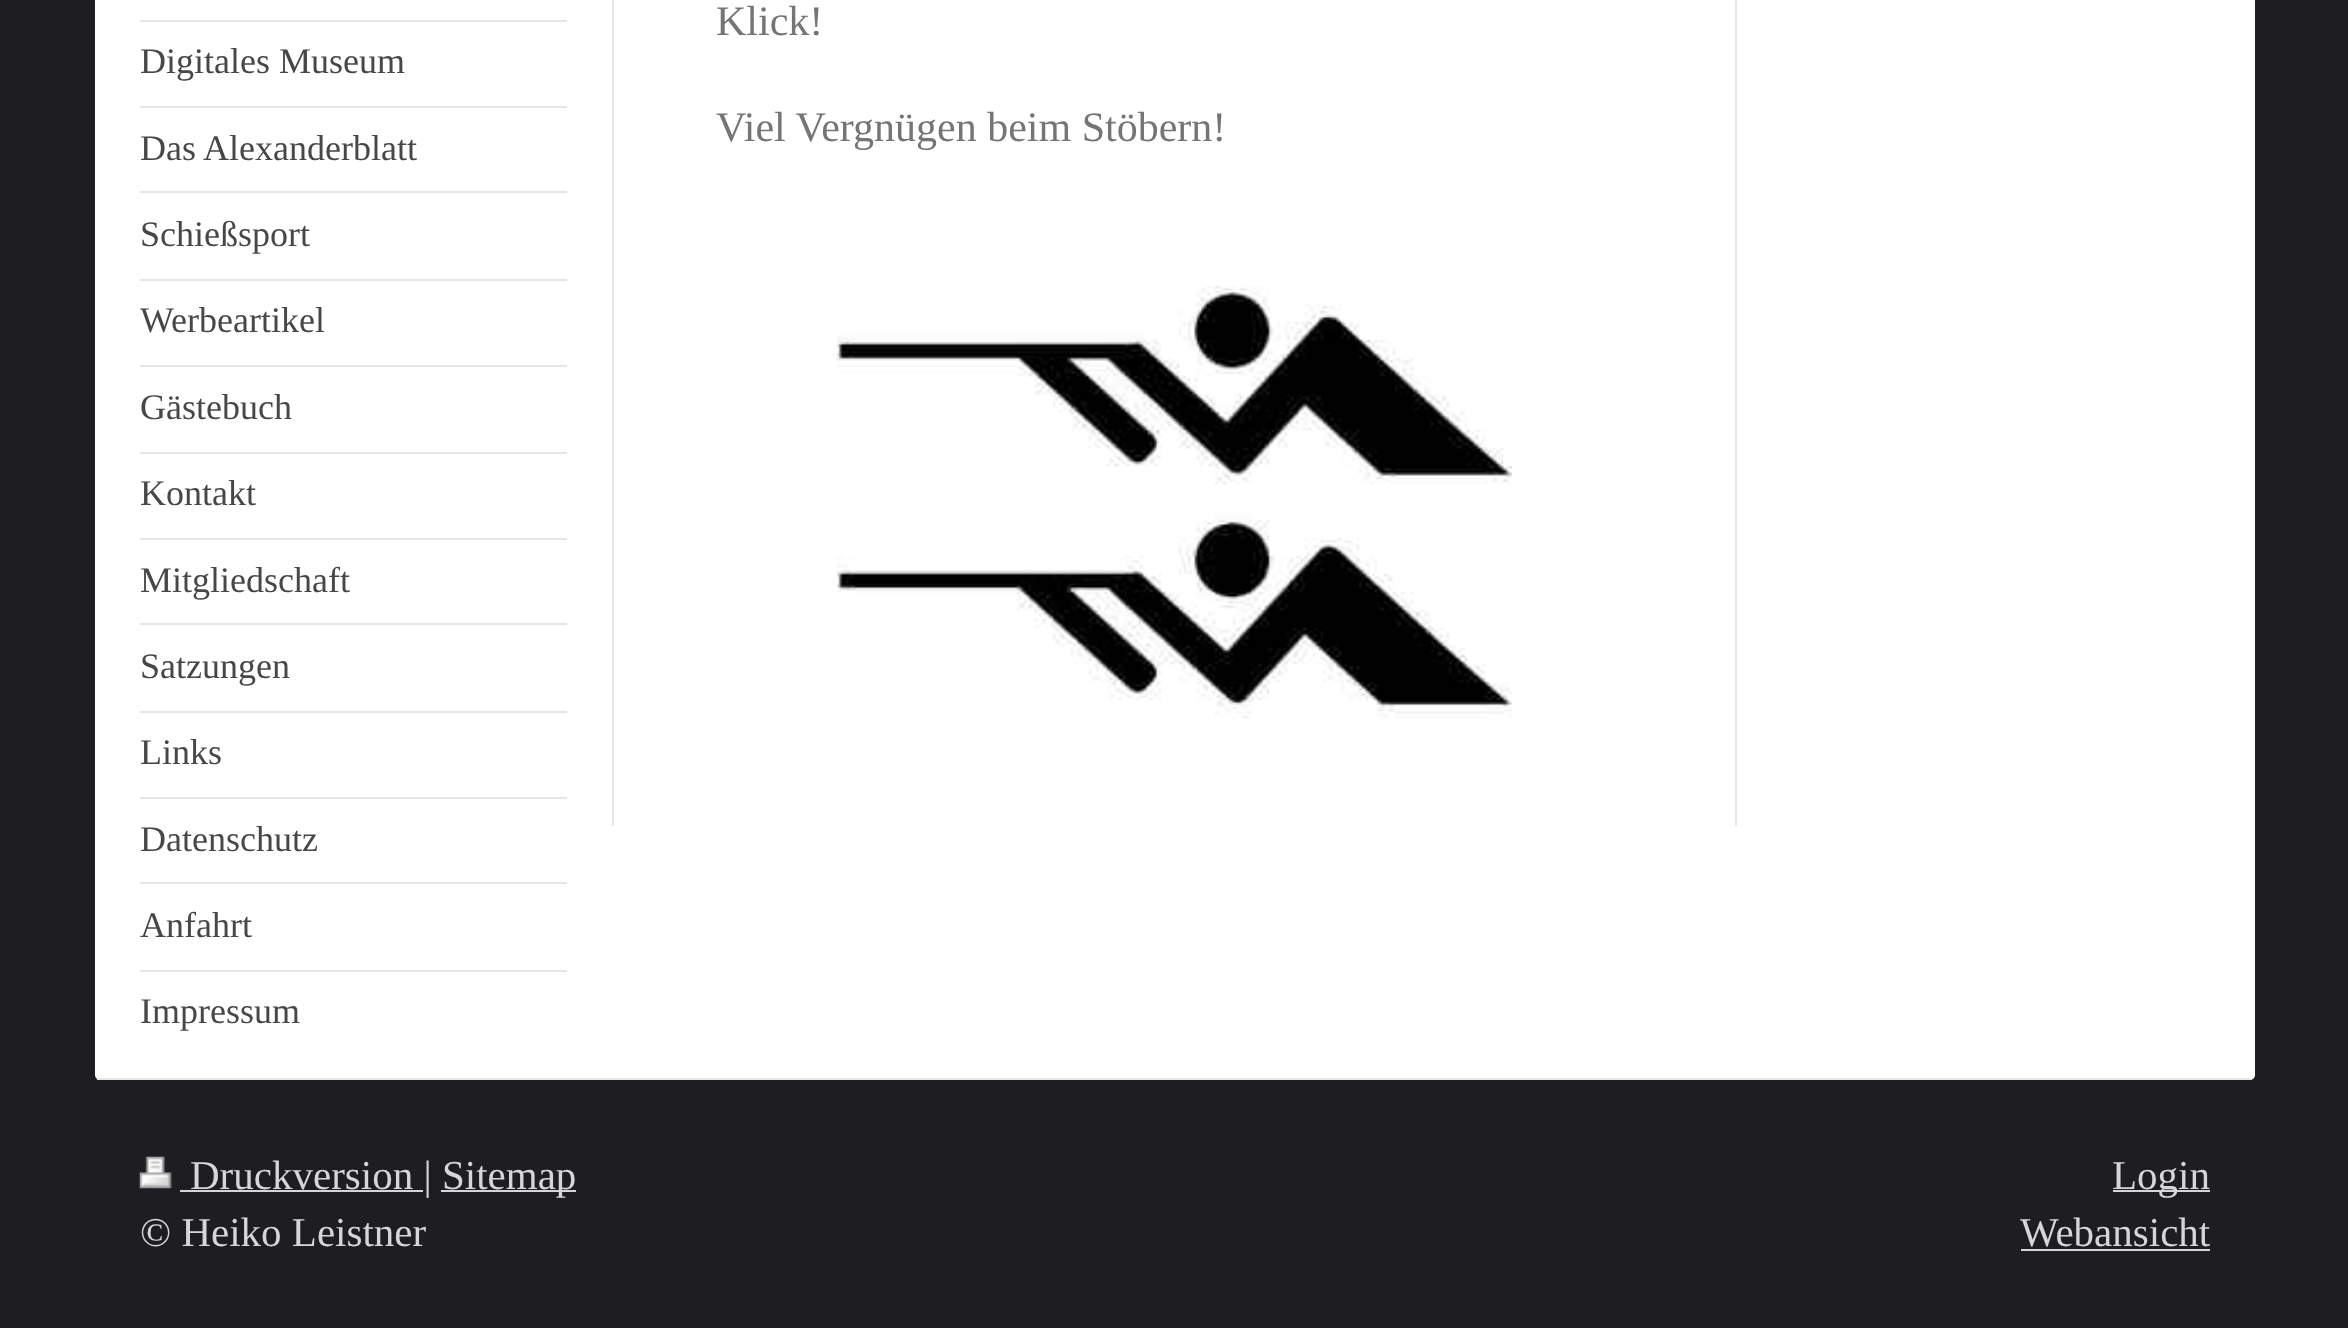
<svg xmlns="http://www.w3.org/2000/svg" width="2348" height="1328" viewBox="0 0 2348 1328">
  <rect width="100%" height="100%" fill="#1e1e22"/>
  <rect x="95" y="-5" width="2160" height="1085" rx="5" fill="#ffffff"/>
  <rect x="97" y="1078" width="2155" height="2" fill="#e6e6e6"/>
  <rect x="140" y="20" width="427" height="2" fill="#e6e6e6"/>
  <rect x="140" y="106" width="427" height="2" fill="#e6e6e6"/>
  <text x="140" y="73" font-family="Liberation Serif" font-size="36" fill="#474747">Digitales Museum</text>
  <rect x="140" y="191" width="427" height="2" fill="#e6e6e6"/>
  <text x="140" y="160" font-family="Liberation Serif" font-size="36" fill="#474747">Das Alexanderblatt</text>
  <rect x="140" y="279" width="427" height="2" fill="#e6e6e6"/>
  <text x="140" y="246" font-family="Liberation Serif" font-size="36" fill="#474747">Schießsport</text>
  <rect x="140" y="365" width="427" height="2" fill="#e6e6e6"/>
  <text x="140" y="332" font-family="Liberation Serif" font-size="36" fill="#474747">Werbeartikel</text>
  <rect x="140" y="452" width="427" height="2" fill="#e6e6e6"/>
  <text x="140" y="419" font-family="Liberation Serif" font-size="36" fill="#474747">Gästebuch</text>
  <rect x="140" y="538" width="427" height="2" fill="#e6e6e6"/>
  <text x="140" y="505" font-family="Liberation Serif" font-size="36" fill="#474747">Kontakt</text>
  <rect x="140" y="623" width="427" height="2" fill="#e6e6e6"/>
  <text x="140" y="592" font-family="Liberation Serif" font-size="36" fill="#474747">Mitgliedschaft</text>
  <rect x="140" y="711" width="427" height="2" fill="#e6e6e6"/>
  <text x="140" y="678" font-family="Liberation Serif" font-size="36" fill="#474747">Satzungen</text>
  <rect x="140" y="797" width="427" height="2" fill="#e6e6e6"/>
  <text x="140" y="764" font-family="Liberation Serif" font-size="36" fill="#474747">Links</text>
  <rect x="140" y="882" width="427" height="2" fill="#e6e6e6"/>
  <text x="140" y="851" font-family="Liberation Serif" font-size="36" fill="#474747">Datenschutz</text>
  <rect x="140" y="970" width="427" height="2" fill="#e6e6e6"/>
  <text x="140" y="937" font-family="Liberation Serif" font-size="36" fill="#474747">Anfahrt</text>
  <text x="140" y="1023" font-family="Liberation Serif" font-size="36" fill="#474747">Impressum</text>
  <rect x="1735" y="0" width="2" height="826" fill="#e6e6e6"/>
  <rect x="612" y="0" width="2" height="826" fill="#e6e6e6"/>
  <text x="716" y="35" font-family="Liberation Serif" font-size="42" fill="#757575">Klick!</text>
  <text x="716" y="141" font-family="Liberation Serif" font-size="42" fill="#757575">Viel Vergnügen beim Stöbern!</text>
  <image x="837" y="286" width="675" height="433" href="img1.png"/>
  <image x="139" y="1156" width="33" height="33" href="img2.png"/>
  <rect x="180" y="1190" width="243" height="2" fill="#d6d6d9"/>
  <text x="190" y="1189" font-family="Liberation Serif" font-size="41" fill="#d6d6d9">Druckversion |</text>
  <rect x="441" y="1190" width="135" height="2" fill="#d6d6d9"/>
  <text x="442" y="1189" font-family="Liberation Serif" font-size="41" fill="#d6d6d9">Sitemap</text>
  <text x="140" y="1246" font-family="Liberation Serif" font-size="41" fill="#d6d6d9">© Heiko Leistner</text>
  <rect x="2113" y="1190" width="97" height="2" fill="#d6d6d9"/>
  <text x="2112" y="1189" font-family="Liberation Serif" font-size="41" fill="#d6d6d9">Login</text>
  <text x="2020" y="1246" font-family="Liberation Serif" font-size="41" fill="#d6d6d9">Webansicht</text>
  <rect x="2021" y="1249" width="189" height="2" fill="#d6d6d9"/>
</svg>
